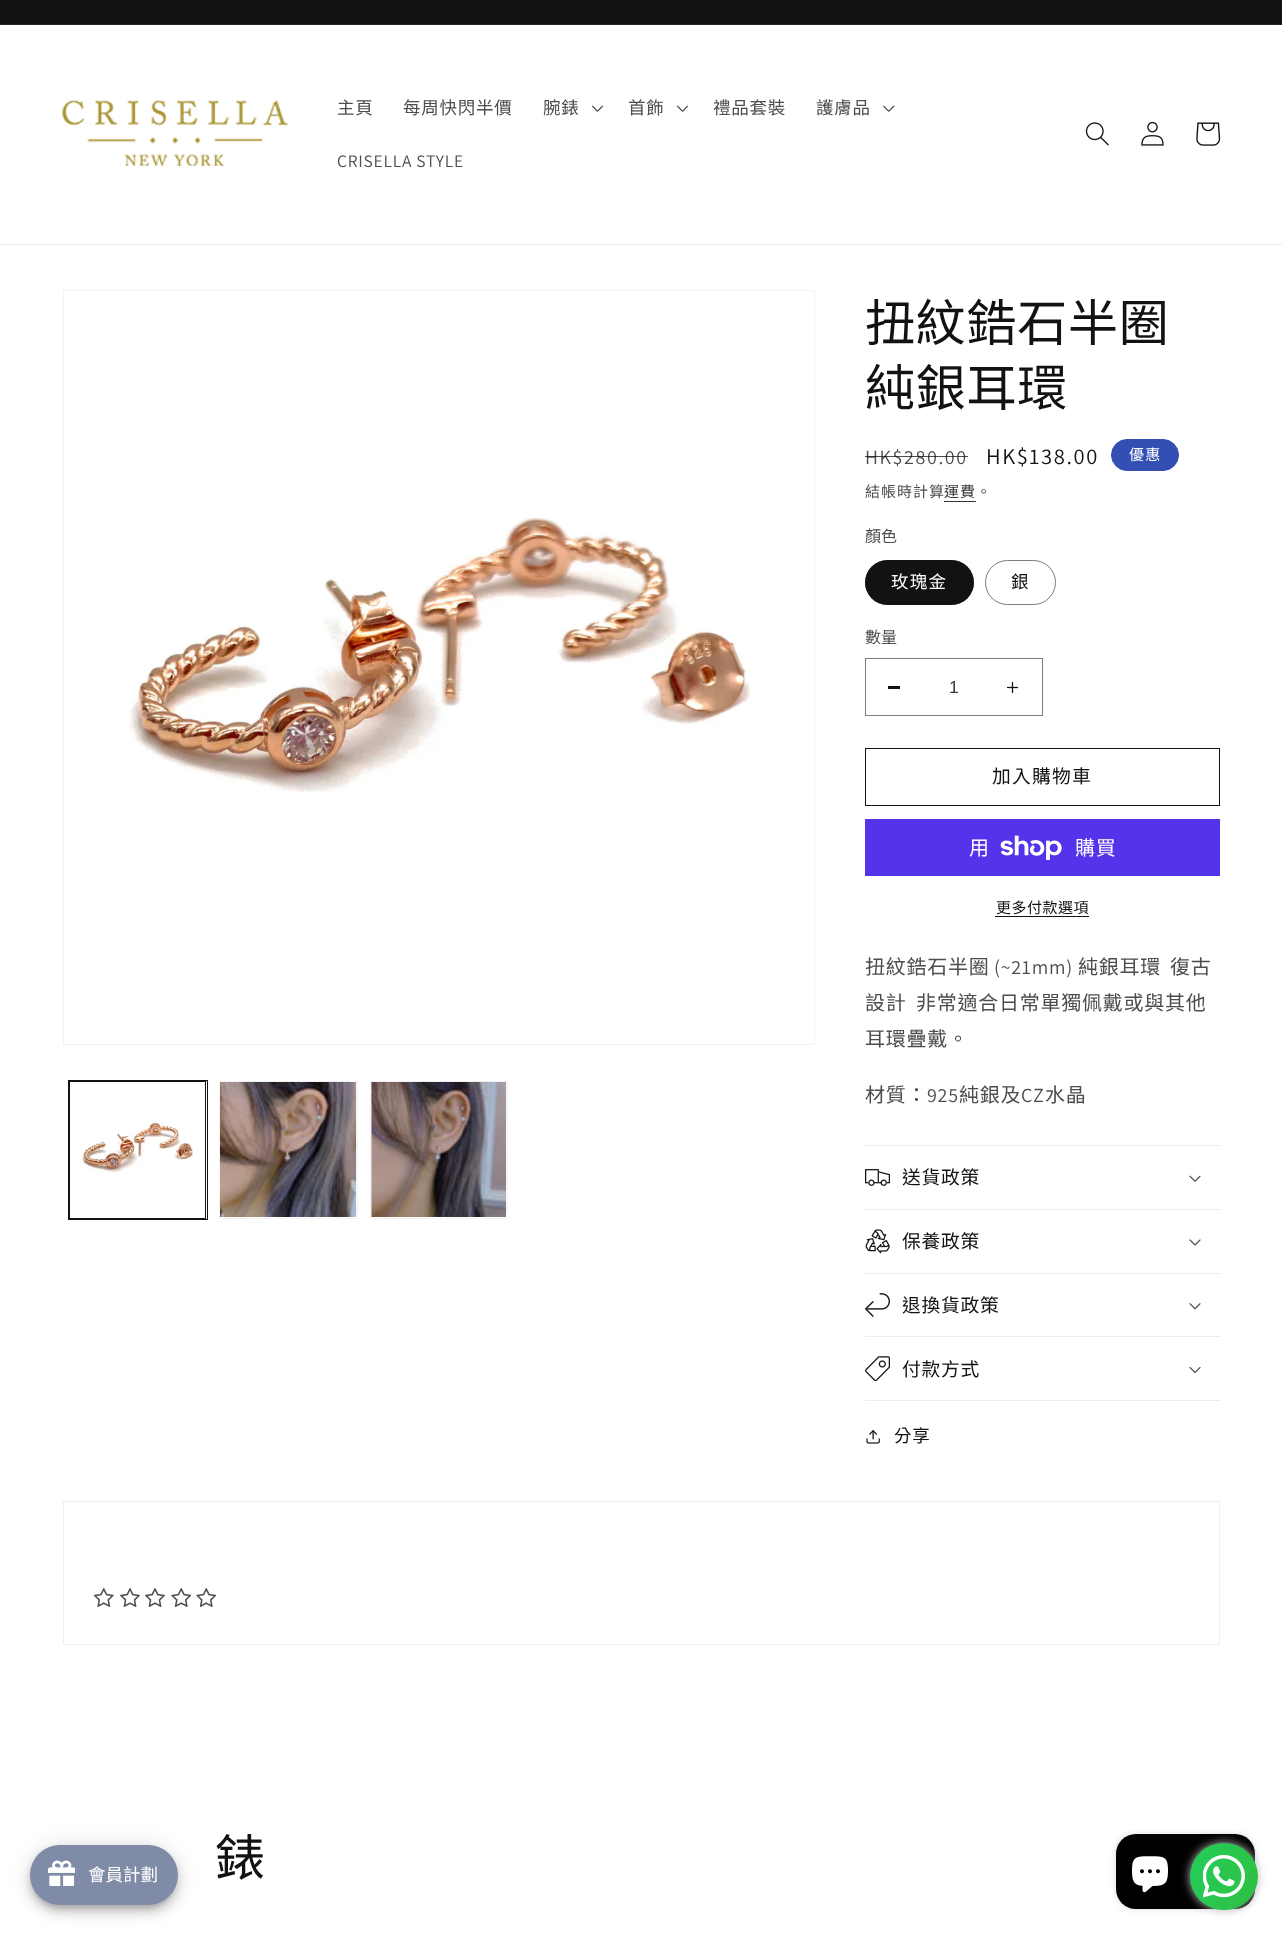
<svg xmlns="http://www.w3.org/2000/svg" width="1282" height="1934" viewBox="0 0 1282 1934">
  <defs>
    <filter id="blur1" x="-50%" y="-200%" width="200%" height="500%"><feGaussianBlur stdDeviation="3"/></filter>
    <filter id="blur2" x="-50%" y="-200%" width="200%" height="500%"><feGaussianBlur stdDeviation="11"/></filter>
    <filter id="blur3" x="-50%" y="-200%" width="200%" height="500%"><feGaussianBlur stdDeviation="6"/></filter>
    <filter id="blur4" x="-50%" y="-200%" width="200%" height="500%"><feGaussianBlur stdDeviation="5"/></filter>
    <linearGradient id="g1" gradientUnits="userSpaceOnUse" x1="1183" y1="1859" x2="1264" y2="1893"><stop offset="0" stop-color="#22ce5a"/><stop offset="0" stop-color="#22ce5a"/><stop offset="1" stop-color="#30bf42"/></linearGradient>
  </defs>
  <rect width="100%" height="100%" fill="#ffffff"/>
  <rect x="0" y="0" width="1282" height="24" fill="#121212"/>
  <rect x="0" y="24" width="1282" height="1" fill="#252525"/>
  <rect x="0" y="244" width="1282" height="1" fill="#ececec"/>
  <image x="62" y="100" width="226" height="66" href="img1.png"/>
  <text x="337" y="114" font-family="Noto Sans CJK TC" font-size="17.5" letter-spacing="0.75" fill="#4d4d4d">主頁</text>
  <text x="403" y="114" font-family="Noto Sans CJK TC" font-size="17.5" letter-spacing="0.75" fill="#4d4d4d">每周快閃半價</text>
  <text x="543" y="114" font-family="Noto Sans CJK TC" font-size="17.5" letter-spacing="0.75" fill="#4d4d4d">腕錶</text>
  <image x="591" y="105" width="13" height="7" href="img2.png"/>
  <text x="628" y="114" font-family="Noto Sans CJK TC" font-size="17.5" letter-spacing="0.75" fill="#4d4d4d">首飾</text>
  <image x="676" y="105" width="13" height="7" href="img2.png"/>
  <text x="713" y="114" font-family="Noto Sans CJK TC" font-size="17.5" letter-spacing="0.75" fill="#4d4d4d">禮品套裝</text>
  <text x="816" y="114" font-family="Noto Sans CJK TC" font-size="17.5" letter-spacing="0.75" fill="#4d4d4d">護膚品</text>
  <image x="883" y="105" width="12" height="7" href="img3.png"/>
  <text x="337" y="167" font-family="Assistant" font-size="17.5" letter-spacing="0.75" fill="#4d4d4d">CRISELLA STYLE</text>
  <image x="1085" y="122" width="24" height="24" href="img4.png"/>
  <image x="1141" y="121" width="23" height="25" href="img5.png"/>
  <image x="1196" y="122" width="25" height="24" href="img6.png"/>
  <rect x="63.5" y="290.5" width="751" height="754" fill="none" stroke="#f3f3f3"/>
  <image x="128" y="517" width="623" height="276" href="img7.png"/>
  <rect x="68.5" y="1080.5" width="139" height="139" fill="none" stroke="#121212"/>
  <rect x="69.5" y="1081.5" width="136" height="137" fill="none" stroke="#121212"/>
  <image x="82" y="1122" width="112" height="50" href="img8.png"/>
  <rect x="219.5" y="1081.5" width="138" height="137" fill="none" stroke="#f3f3f3"/>
  <image x="220" y="1082" width="137" height="135" href="img9.png"/>
  <rect x="370.5" y="1081.5" width="137" height="137" fill="none" stroke="#f3f3f3"/>
  <image x="371" y="1082" width="136" height="135" href="img10.png"/>
  <text x="865" y="341" font-family="Noto Sans CJK TC" font-size="50" letter-spacing="0.75" fill="#121212">扭紋鋯石半圈</text>
  <text x="865" y="406" font-family="Noto Sans CJK TC" font-size="50" letter-spacing="0.75" fill="#121212">純銀耳環</text>
  <text x="865" y="464" font-family="Assistant" font-size="20" letter-spacing="1.6" fill="#4d4d4d">HK$280.00</text>
  <rect x="865" y="456" width="103" height="1" fill="#121212" fill-opacity="0.75"/>
  <text x="986" y="464" font-family="Assistant" font-size="22.5" letter-spacing="1.6" fill="#121212">HK$138.00</text>
  <rect x="1111.5" y="439.5" width="67" height="31" rx="15.5" fill="#334fb4" stroke="#334fb4"/>
  <text x="1129" y="460" font-family="Noto Sans CJK TC" font-size="15" letter-spacing="1.25" fill="#ffffff">優惠</text>
  <text x="865" y="497" font-family="Noto Sans CJK TC" font-size="15" letter-spacing="1" fill="#4d4d4d">結帳時計算</text>
  <text x="944" y="497" font-family="Noto Sans CJK TC" font-size="15" letter-spacing="1" fill="#363636">運費</text>
  <rect x="944" y="501" width="32" height="1" fill="#363636"/>
  <text x="976" y="497" font-family="Noto Sans CJK TC" font-size="15" letter-spacing="1" fill="#4d4d4d">。</text>
  <text x="865" y="542" font-family="Noto Sans CJK TC" font-size="16" fill="#4d4d4d">顏色</text>
  <rect x="865" y="560" width="109" height="45" rx="22.5" fill="#121212"/>
  <rect x="865.5" y="560.5" width="108" height="44" rx="22" fill="none" stroke="#121212" stroke-opacity="0.55"/>
  <text x="891" y="588" font-family="Noto Sans CJK TC" font-size="17.5" letter-spacing="1.25" fill="#ffffff">玫瑰金</text>
  <rect x="985.5" y="560.5" width="70" height="44" rx="22" fill="none" stroke="#7d7d7d"/>
  <text x="1011" y="588" font-family="Noto Sans CJK TC" font-size="17.5" letter-spacing="1.25" fill="#121212">銀</text>
  <text x="865" y="643" font-family="Noto Sans CJK TC" font-size="16" fill="#4d4d4d">數量</text>
  <rect x="888" y="686" width="12" height="3" fill="#121212"/>
  <image x="1006" y="681" width="13" height="13" href="img11.png"/>
  <rect x="865.5" y="658.5" width="177" height="57" fill="none" stroke="#7d7d7d"/>
  <text x="949" y="693" font-family="Liberation Sans" font-size="17.5" fill="#363636">1</text>
  <rect x="865.5" y="748.5" width="354" height="57" fill="none" stroke="#121212"/>
  <text x="992" y="783" font-family="Noto Sans CJK TC" font-size="18.75" letter-spacing="1.25" fill="#121212">加入購物車</text>
  <rect x="865" y="819" width="355" height="57" fill="#5433eb"/>
  <text x="969" y="855" font-family="Noto Sans CJK TC" font-size="20" letter-spacing="0.75" fill="#ffffff">用</text>
  <image x="1000" y="835" width="62" height="25" href="img12.png"/>
  <text x="1075" y="855" font-family="Noto Sans CJK TC" font-size="20" letter-spacing="0.75" fill="#ffffff">購買</text>
  <text x="996" y="913" font-family="Noto Sans CJK TC" font-size="15" letter-spacing="0.5" fill="#121212">更多付款選項</text>
  <rect x="995" y="916" width="94" height="1" fill="#121212"/>
  <text x="865" y="974" font-family="Noto Sans CJK TC" font-size="20" letter-spacing="0.75" fill="#4d4d4d">扭紋鋯石半圈</text>
  <text x="994" y="974" font-family="Assistant" font-size="20" letter-spacing="0.75" fill="#4d4d4d">(~21mm)</text>
  <text x="1078" y="974" font-family="Noto Sans CJK TC" font-size="20" letter-spacing="0.75" fill="#4d4d4d">純銀耳環</text>
  <text x="1170" y="974" font-family="Noto Sans CJK TC" font-size="20" letter-spacing="0.75" fill="#4d4d4d">復古</text>
  <text x="865" y="1010" font-family="Noto Sans CJK TC" font-size="20" letter-spacing="0.75" fill="#4d4d4d">設計</text>
  <text x="916" y="1010" font-family="Noto Sans CJK TC" font-size="20" letter-spacing="0.75" fill="#4d4d4d">非常適合日常單獨佩戴或與其他</text>
  <text x="865" y="1046" font-family="Noto Sans CJK TC" font-size="20" letter-spacing="0.75" fill="#4d4d4d">耳環疊戴。</text>
  <text x="865" y="1102" font-family="Noto Sans CJK TC" font-size="20" letter-spacing="0.75" fill="#4d4d4d">材質：</text>
  <text x="927" y="1102" font-family="Assistant" font-size="20" letter-spacing="0.75" fill="#4d4d4d">925</text>
  <text x="959" y="1102" font-family="Noto Sans CJK TC" font-size="20" letter-spacing="0.75" fill="#4d4d4d">純銀及</text>
  <text x="1021" y="1102" font-family="Assistant" font-size="20" letter-spacing="0.75" fill="#4d4d4d">CZ</text>
  <text x="1045" y="1102" font-family="Noto Sans CJK TC" font-size="20" letter-spacing="0.75" fill="#4d4d4d">水晶</text>
  <rect x="865" y="1145" width="355" height="1" fill="#ececec"/>
  <rect x="865" y="1209" width="355" height="1" fill="#ececec"/>
  <image x="865" y="1169" width="25" height="17" href="img13.png"/>
  <text x="902" y="1184" font-family="Noto Sans CJK TC" font-size="18.75" letter-spacing="0.75" fill="#121212">送貨政策</text>
  <image x="1189" y="1175" width="12" height="7" href="img14.png"/>
  <rect x="865" y="1273" width="355" height="1" fill="#ececec"/>
  <image x="865" y="1229" width="25" height="25" href="img15.png"/>
  <text x="902" y="1248" font-family="Noto Sans CJK TC" font-size="18.75" letter-spacing="0.75" fill="#121212">保養政策</text>
  <image x="1189" y="1239" width="12" height="7" href="img16.png"/>
  <rect x="865" y="1336" width="355" height="1" fill="#ececec"/>
  <image x="865" y="1293" width="25" height="24" href="img17.png"/>
  <text x="902" y="1312" font-family="Noto Sans CJK TC" font-size="18.75" letter-spacing="0.75" fill="#121212">退換貨政策</text>
  <image x="1189" y="1303" width="12" height="7" href="img18.png"/>
  <rect x="865" y="1400" width="355" height="1" fill="#ececec"/>
  <image x="865" y="1356" width="25" height="25" href="img19.png"/>
  <text x="902" y="1376" font-family="Noto Sans CJK TC" font-size="18.75" letter-spacing="0.75" fill="#121212">付款方式</text>
  <image x="1189" y="1367" width="12" height="6" href="img20.png"/>
  <image x="866" y="1430" width="14" height="14" href="img21.png"/>
  <text x="894" y="1442" font-family="Noto Sans CJK TC" font-size="17.5" letter-spacing="0.75" fill="#121212">分享</text>
  <rect x="63.5" y="1501.5" width="1156" height="143" fill="none" stroke="#eeeeee"/>
  <image x="93" y="1588" width="21" height="19" href="img22.png"/>
  <image x="120" y="1588" width="20" height="19" href="img23.png"/>
  <image x="145" y="1588" width="20" height="19" href="img23.png"/>
  <image x="171" y="1588" width="21" height="19" href="img24.png"/>
  <image x="196" y="1588" width="21" height="19" href="img24.png"/>
  <text x="215" y="1876" font-family="Noto Sans CJK TC" font-size="50" letter-spacing="0.75" fill="#121212">錶</text>
  <rect x="1116" y="1834" width="139" height="75" rx="20" fill="#000000" fill-opacity="0.15" filter="url(#blur1)"/>
  <rect x="1116" y="1834" width="139" height="75" rx="20" fill="#000000"/>
  <image x="1132" y="1856" width="36" height="37" href="img25.png"/>
  <rect x="30" y="1846" width="148" height="60" rx="30" fill="#000000" fill-opacity="0.12" filter="url(#blur2)"/>
  <rect x="30" y="1853" width="148" height="60" rx="30" fill="#000000" fill-opacity="0.14" filter="url(#blur3)"/>
  <rect x="31" y="1850" width="145" height="58" rx="29" fill="#000000" fill-opacity="0.2" filter="url(#blur1)"/>
  <rect x="30" y="1845" width="148" height="60" rx="30" fill="#808ba7"/>
  <image x="48" y="1860" width="27" height="26" href="img26.png"/>
  <text x="88" y="1881" font-family="Noto Sans CJK TC" font-size="17.5" fill="#ffffff">會員計劃</text>
  <rect x="1190" y="1843" width="68" height="67" rx="33.5" fill="#c2c2c2" filter="url(#blur4)"/>
  <rect x="1190" y="1843" width="68" height="67" rx="33.5" fill="url(#g1)"/>
  <image x="1203" y="1855" width="42" height="43" href="img27.png"/>
</svg>
